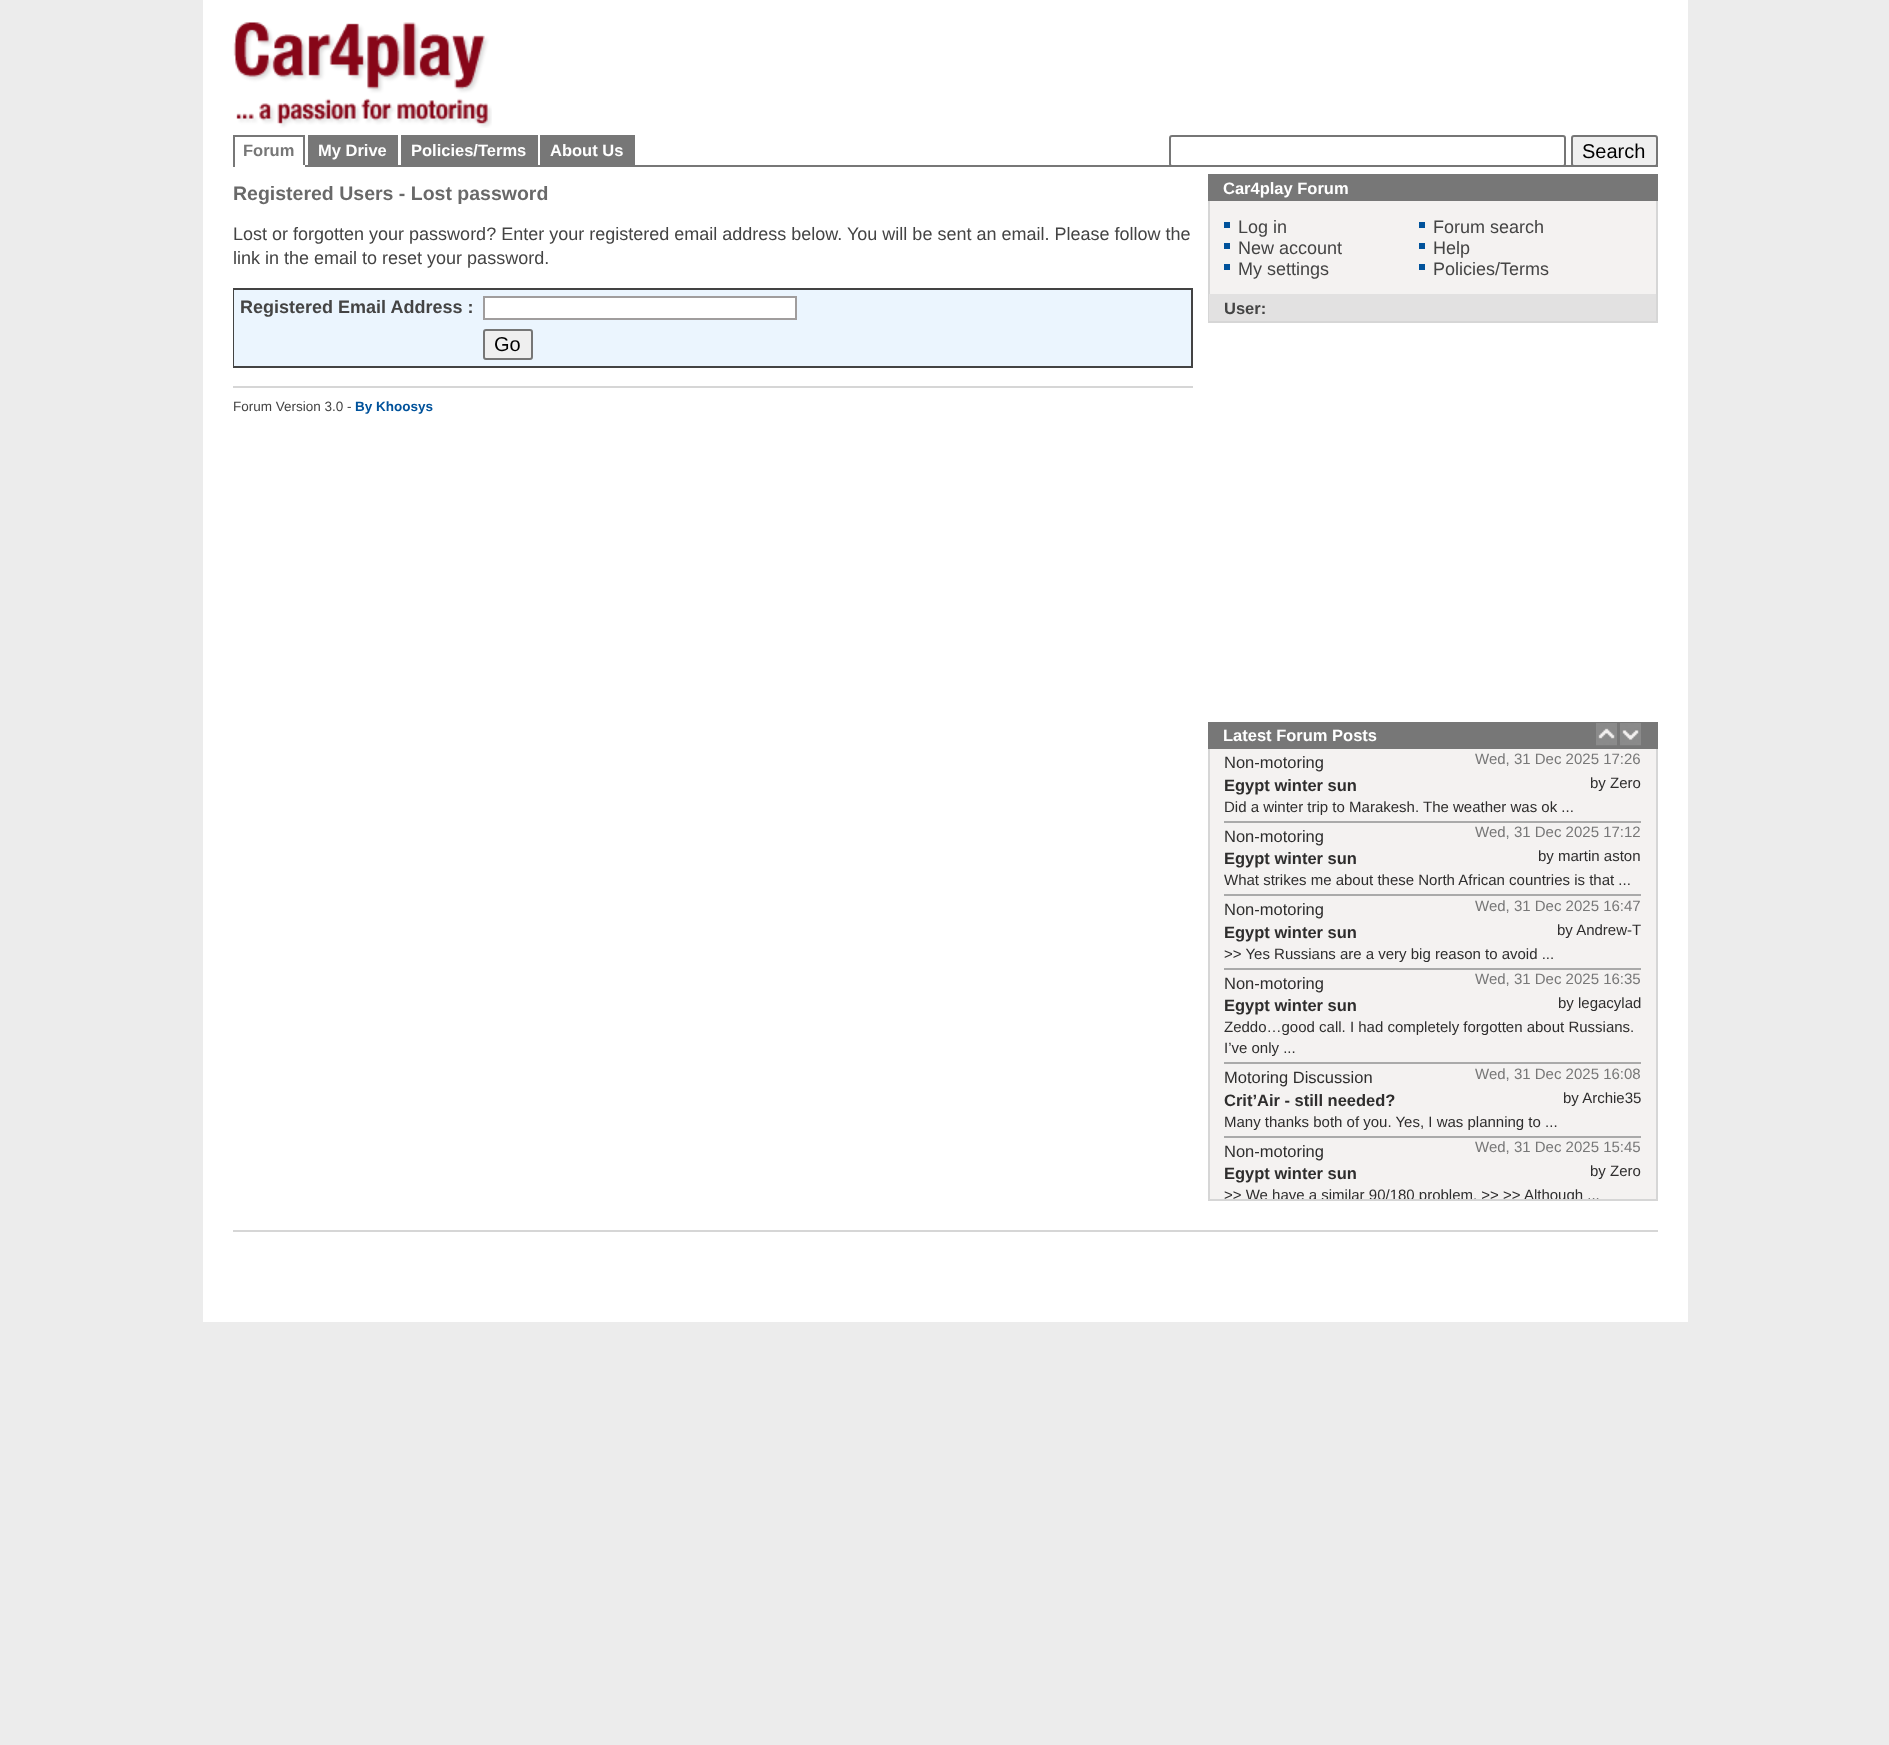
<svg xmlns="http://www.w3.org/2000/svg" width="1889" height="1745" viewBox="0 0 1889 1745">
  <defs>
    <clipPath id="clip1"><rect x="1209" y="749" width="447" height="450"/></clipPath>
  </defs>
  <rect width="100%" height="100%" fill="#ececec"/>
  <rect x="203" y="0" width="1485" height="1322" fill="#ffffff"/>
  <image x="233" y="22" width="259" height="106" href="img1.png"/>
  <rect x="305" y="165" width="1353" height="2" fill="#777777"/>
  <rect x="233" y="135" width="72" height="2" fill="#777777"/>
  <rect x="303" y="135" width="2" height="32" fill="#777777"/>
  <rect x="303" y="165" width="2" height="2" fill="#ffffff"/>
  <rect x="233" y="135" width="2" height="32" fill="#777777"/>
  <text x="243" y="156" font-family="Liberation Sans" font-size="16.5" font-weight="bold" fill="#777777">Forum</text>
  <rect x="308" y="135" width="90" height="30" fill="#777777"/>
  <text x="318" y="156" font-family="Liberation Sans" font-size="16.5" font-weight="bold" fill="#ffffff">My Drive</text>
  <rect x="401" y="135" width="137" height="30" fill="#777777"/>
  <text x="411" y="156" font-family="Liberation Sans" font-size="16.5" font-weight="bold" fill="#ffffff">Policies/Terms</text>
  <rect x="540" y="135" width="95" height="30" fill="#777777"/>
  <text x="550" y="156" font-family="Liberation Sans" font-size="16.5" font-weight="bold" fill="#ffffff">About Us</text>
  <rect x="1170" y="136" width="395" height="30" rx="2" fill="#ffffff" stroke="#767676" stroke-width="2"/>
  <rect x="1572" y="136" width="85" height="30" rx="2" fill="#efefef" stroke="#767676" stroke-width="2"/>
  <text x="1582" y="158" font-family="Liberation Sans" font-size="20" fill="#000000">Search</text>
  <text x="233" y="200" font-family="Liberation Sans" font-size="19.5" font-weight="bold" fill="#696969">Registered Users - Lost password</text>
  <text x="233" y="240" font-family="Liberation Sans" font-size="18" fill="#444444">Lost or forgotten your password? Enter your registered email address below. You will be sent an email. Please follow the</text>
  <text x="233" y="264" font-family="Liberation Sans" font-size="18" fill="#444444">link in the email to reset your password.</text>
  <rect x="233" y="288" width="960" height="80" fill="#434343"/>
  <rect x="234" y="290" width="957" height="76" fill="#ebf5fe"/>
  <text x="240" y="313" font-family="Liberation Sans" font-size="18" font-weight="bold" fill="#444444">Registered Email Address :</text>
  <rect x="484" y="297" width="312" height="22" fill="#ffffff" stroke="#a09d9d" stroke-width="2"/>
  <rect x="484" y="330" width="48" height="29" rx="2" fill="#efefef" stroke="#767676" stroke-width="2"/>
  <text x="494" y="351" font-family="Liberation Sans" font-size="20" fill="#000000">Go</text>
  <rect x="233" y="386" width="960" height="2" fill="#d6d6d6"/>
  <text x="233" y="411" font-family="Liberation Sans" font-size="13.5" fill="#444444">Forum Version 3.0 -</text>
  <text x="355" y="411" font-family="Liberation Sans" font-size="13.5" font-weight="bold" fill="#00529b">By Khoosys</text>
  <rect x="1208" y="174" width="450" height="27" fill="#777777"/>
  <text x="1223" y="194" font-family="Liberation Sans" font-size="16.5" font-weight="bold" fill="#ffffff">Car4play Forum</text>
  <rect x="1210" y="201" width="446" height="93" fill="#f4f2f1"/>
  <rect x="1656" y="201" width="2" height="122" fill="#d6d6d6"/>
  <rect x="1208" y="321" width="450" height="2" fill="#d6d6d6"/>
  <rect x="1208" y="201" width="2" height="122" fill="#d6d6d6"/>
  <rect x="1224" y="222" width="6" height="6" fill="#00529b"/>
  <text x="1238" y="233" font-family="Liberation Sans" font-size="18" fill="#444444">Log in</text>
  <rect x="1224" y="243" width="6" height="6" fill="#00529b"/>
  <text x="1238" y="254" font-family="Liberation Sans" font-size="18" fill="#444444">New account</text>
  <rect x="1224" y="264" width="6" height="6" fill="#00529b"/>
  <text x="1238" y="275" font-family="Liberation Sans" font-size="18" fill="#444444">My settings</text>
  <rect x="1419" y="222" width="6" height="6" fill="#00529b"/>
  <text x="1433" y="233" font-family="Liberation Sans" font-size="18" fill="#444444">Forum search</text>
  <rect x="1419" y="243" width="6" height="6" fill="#00529b"/>
  <text x="1433" y="254" font-family="Liberation Sans" font-size="18" fill="#444444">Help</text>
  <rect x="1419" y="264" width="6" height="6" fill="#00529b"/>
  <text x="1433" y="275" font-family="Liberation Sans" font-size="18" fill="#444444">Policies/Terms</text>
  <rect x="1209" y="294" width="447" height="27" fill="#e2e1e1"/>
  <text x="1224" y="314" font-family="Liberation Sans" font-size="16.5" font-weight="bold" fill="#444444">User:</text>
  <rect x="1208" y="722" width="450" height="27" fill="#777777"/>
  <text x="1223" y="741" font-family="Liberation Sans" font-size="16.5" font-weight="bold" fill="#ffffff">Latest Forum Posts</text>
  <image x="1596" y="723" width="21" height="23" href="img2.png"/>
  <image x="1620" y="723" width="21" height="23" href="img3.png"/>
  <rect x="1210" y="749" width="446" height="450" fill="#f4f2f1"/>
  <rect x="1656" y="749" width="2" height="451" fill="#d6d6d6"/>
  <rect x="1208" y="1199" width="450" height="2" fill="#d6d6d6"/>
  <rect x="1208" y="749" width="2" height="451" fill="#d6d6d6"/>
  <text x="1224" y="768" font-family="Liberation Sans" font-size="16.5" fill="#2e2d2d">Non-motoring</text>
  <text x="1475" y="764" font-family="Liberation Sans" font-size="15" fill="#777777">Wed, 31 Dec 2025 17:26</text>
  <text x="1224" y="791" font-family="Liberation Sans" font-size="16.5" font-weight="bold" fill="#2e2d2d">Egypt winter sun</text>
  <text x="1590" y="788" font-family="Liberation Sans" font-size="15" fill="#2e2d2d">by Zero</text>
  <text x="1224" y="812" font-family="Liberation Sans" font-size="15" fill="#2e2d2d">Did a winter trip to Marakesh. The weather was ok ...</text>
  <rect x="1224" y="821" width="417" height="2" fill="#aaaaaa"/>
  <text x="1224" y="842" font-family="Liberation Sans" font-size="16.5" fill="#2e2d2d">Non-motoring</text>
  <text x="1475" y="837" font-family="Liberation Sans" font-size="15" fill="#777777">Wed, 31 Dec 2025 17:12</text>
  <text x="1224" y="864" font-family="Liberation Sans" font-size="16.5" font-weight="bold" fill="#2e2d2d">Egypt winter sun</text>
  <text x="1538" y="861" font-family="Liberation Sans" font-size="15" fill="#2e2d2d">by martin aston</text>
  <text x="1224" y="885" font-family="Liberation Sans" font-size="15" fill="#2e2d2d">What strikes me about these North African countries is that ...</text>
  <rect x="1224" y="894" width="417" height="2" fill="#aaaaaa"/>
  <text x="1224" y="915" font-family="Liberation Sans" font-size="16.5" fill="#2e2d2d">Non-motoring</text>
  <text x="1475" y="911" font-family="Liberation Sans" font-size="15" fill="#777777">Wed, 31 Dec 2025 16:47</text>
  <text x="1224" y="938" font-family="Liberation Sans" font-size="16.5" font-weight="bold" fill="#2e2d2d">Egypt winter sun</text>
  <text x="1557" y="935" font-family="Liberation Sans" font-size="15" fill="#2e2d2d">by Andrew-T</text>
  <text x="1224" y="959" font-family="Liberation Sans" font-size="15" fill="#2e2d2d">&gt;&gt; Yes Russians are a very big reason to avoid ...</text>
  <rect x="1224" y="968" width="417" height="2" fill="#aaaaaa"/>
  <text x="1224" y="989" font-family="Liberation Sans" font-size="16.5" fill="#2e2d2d">Non-motoring</text>
  <text x="1475" y="984" font-family="Liberation Sans" font-size="15" fill="#777777">Wed, 31 Dec 2025 16:35</text>
  <text x="1224" y="1011" font-family="Liberation Sans" font-size="16.5" font-weight="bold" fill="#2e2d2d">Egypt winter sun</text>
  <text x="1558" y="1008" font-family="Liberation Sans" font-size="15" fill="#2e2d2d">by legacylad</text>
  <text x="1224" y="1032" font-family="Liberation Sans" font-size="15" fill="#2e2d2d">Zeddo…good call. I had completely forgotten about Russians.</text>
  <text x="1224" y="1053" font-family="Liberation Sans" font-size="15" fill="#2e2d2d">I’ve only ...</text>
  <rect x="1224" y="1062" width="417" height="2" fill="#aaaaaa"/>
  <text x="1224" y="1083" font-family="Liberation Sans" font-size="16.5" fill="#2e2d2d">Motoring Discussion</text>
  <text x="1475" y="1079" font-family="Liberation Sans" font-size="15" fill="#777777">Wed, 31 Dec 2025 16:08</text>
  <text x="1224" y="1106" font-family="Liberation Sans" font-size="16.5" font-weight="bold" fill="#2e2d2d">Crit’Air - still needed?</text>
  <text x="1563" y="1103" font-family="Liberation Sans" font-size="15" fill="#2e2d2d">by Archie35</text>
  <text x="1224" y="1127" font-family="Liberation Sans" font-size="15" fill="#2e2d2d">Many thanks both of you. Yes, I was planning to ...</text>
  <rect x="1224" y="1136" width="417" height="2" fill="#aaaaaa"/>
  <text x="1224" y="1157" font-family="Liberation Sans" font-size="16.5" fill="#2e2d2d">Non-motoring</text>
  <text x="1475" y="1152" font-family="Liberation Sans" font-size="15" fill="#777777">Wed, 31 Dec 2025 15:45</text>
  <text x="1224" y="1179" font-family="Liberation Sans" font-size="16.5" font-weight="bold" fill="#2e2d2d">Egypt winter sun</text>
  <text x="1590" y="1176" font-family="Liberation Sans" font-size="15" fill="#2e2d2d">by Zero</text>
  <g clip-path="url(#clip1)">
    <text x="1224" y="1200" font-family="Liberation Sans" font-size="15" fill="#2e2d2d">&gt;&gt; We have a similar 90/180 problem. &gt;&gt; &gt;&gt; Although ...</text>
  </g>
  <rect x="233" y="1230" width="1425" height="2" fill="#d6d6d6"/>
</svg>
